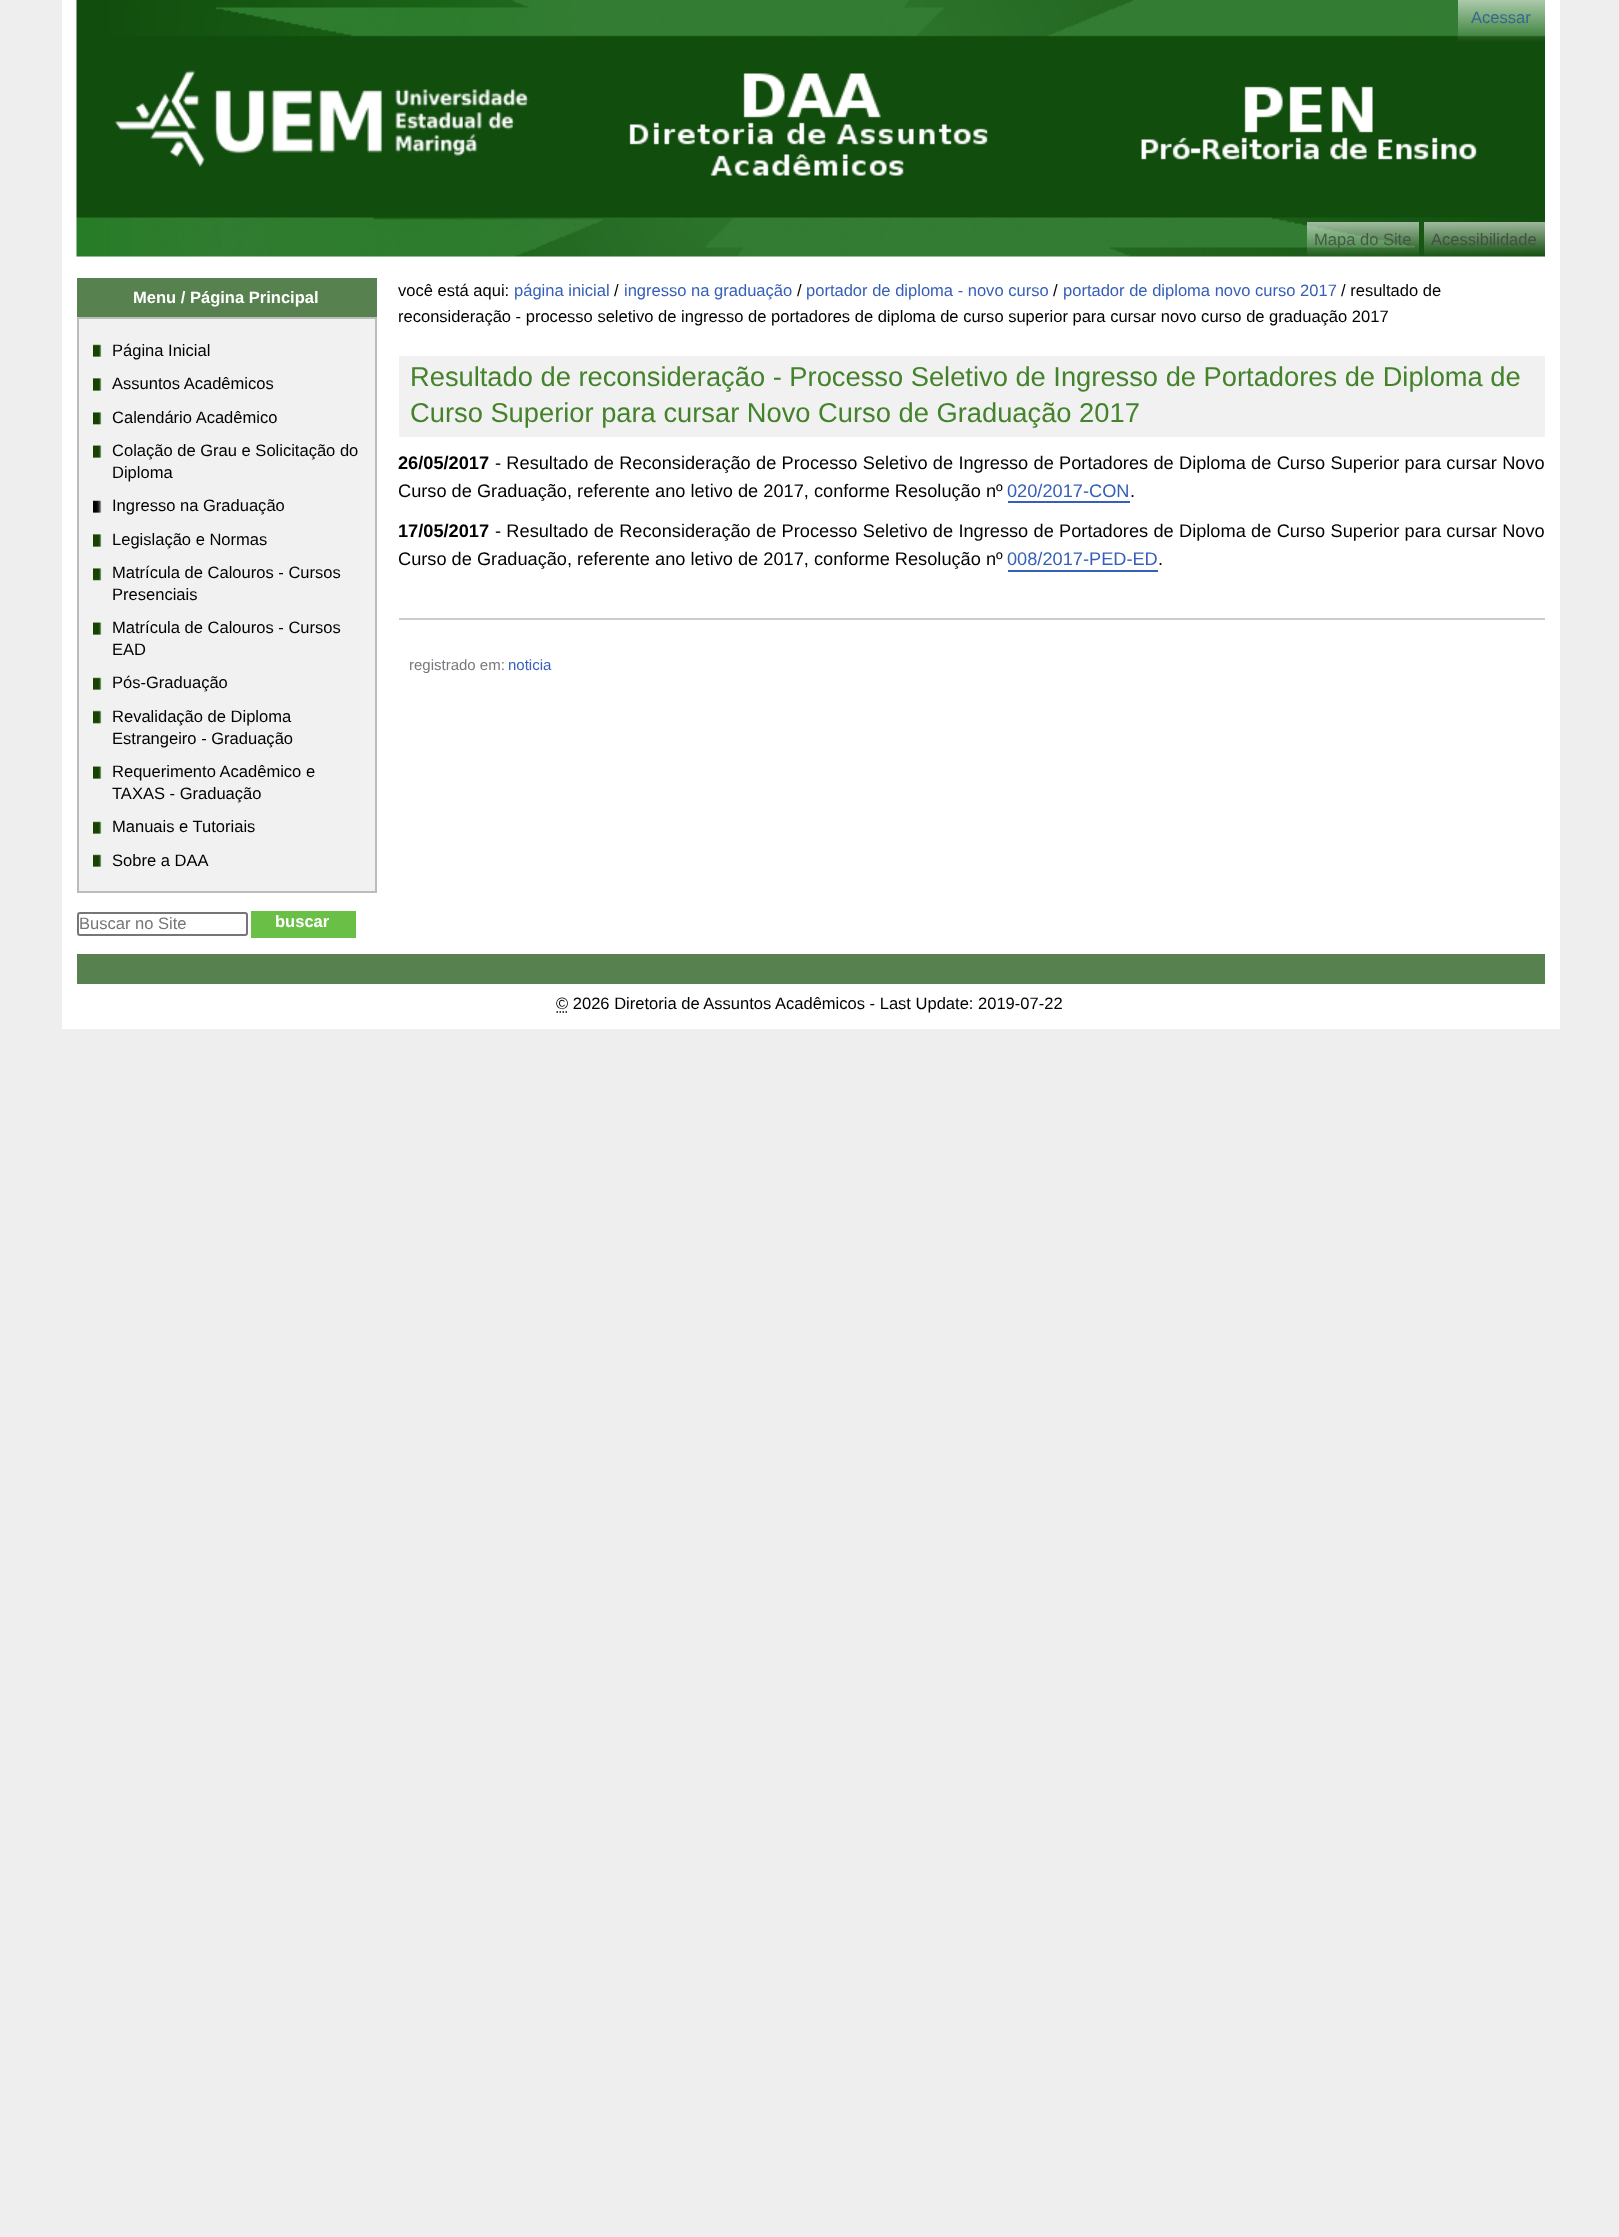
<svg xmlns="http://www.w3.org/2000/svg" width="1619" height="2237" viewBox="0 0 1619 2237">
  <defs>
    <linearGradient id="g1" gradientUnits="userSpaceOnUse" x1="77" y1="257" x2="77" y2="0"><stop offset="0" stop-color="#f7fbfc"/><stop offset="0.63" stop-color="#b9effb"/></linearGradient>
    <linearGradient id="g2" gradientUnits="userSpaceOnUse" x1="1307" y1="222" x2="1307" y2="257"><stop offset="0" stop-color="#ffffff" stop-opacity="0.59"/><stop offset="1" stop-color="#ffffff" stop-opacity="0"/></linearGradient>
    <linearGradient id="g3" gradientUnits="userSpaceOnUse" x1="1424" y1="222" x2="1424" y2="257"><stop offset="0" stop-color="#ffffff" stop-opacity="0.59"/><stop offset="1" stop-color="#ffffff" stop-opacity="0"/></linearGradient>
  </defs>
  <rect width="100%" height="100%" fill="#eeeeee"/>
  <rect x="62" y="0" width="1498" height="1029" fill="#ffffff"/>
  <rect x="77" y="256" width="1468" height="1" fill="url(#g1)"/>
  <image x="76" y="0" width="1469" height="257" href="img1.png"/>
  <text x="1471" y="23" font-family="Liberation Sans" font-size="16.55" fill="#346890">Acessar</text>
  <image x="115" y="70" width="414" height="97" href="img2.png"/>
  <image x="629" y="73" width="359" height="103" href="img3.png"/>
  <image x="1141" y="86" width="336" height="74" href="img4.png"/>
  <rect x="1307" y="222" width="112" height="34" fill="url(#g2)"/>
  <text x="1314" y="245" font-family="Liberation Sans" font-size="16.55" fill="#475747">Mapa do Site</text>
  <rect x="1424" y="222" width="121" height="34" fill="url(#g3)"/>
  <text x="1431" y="245" font-family="Liberation Sans" font-size="16.55" fill="#435042">Acessibilidade</text>
  <rect x="77" y="891" width="300" height="2" fill="#bcbcbc"/>
  <rect x="77" y="278" width="300" height="39" fill="#57814e"/>
  <text x="133" y="303" font-family="Liberation Sans" font-size="16.55" font-weight="bold" fill="#ffffff">Menu / Página Principal</text>
  <rect x="79" y="319" width="296" height="572" fill="#f1f1f1"/>
  <rect x="77" y="317" width="300" height="2" fill="#bcbcbc"/>
  <rect x="375" y="317" width="2" height="574" fill="#bcbcbc"/>
  <rect x="77" y="317" width="2" height="574" fill="#bcbcbc"/>
  <image x="93" y="344" width="9" height="13" href="img5.png"/>
  <text x="112" y="356" font-family="Liberation Sans" font-size="16.55" fill="#000000">Página Inicial</text>
  <image x="93" y="378" width="9" height="13" href="img6.png"/>
  <text x="112" y="389" font-family="Liberation Sans" font-size="16.55" fill="#000000">Assuntos Acadêmicos</text>
  <image x="93" y="412" width="9" height="13" href="img7.png"/>
  <text x="112" y="423" font-family="Liberation Sans" font-size="16.55" fill="#000000">Calendário Acadêmico</text>
  <image x="93" y="445" width="9" height="13" href="img8.png"/>
  <text x="112" y="456" font-family="Liberation Sans" font-size="16.55" fill="#000000">Colação de Grau e Solicitação do</text>
  <text x="112" y="478" font-family="Liberation Sans" font-size="16.55" fill="#000000">Diploma</text>
  <image x="93" y="500" width="9" height="13" href="img9.png"/>
  <text x="112" y="511" font-family="Liberation Sans" font-size="16.55" fill="#000000">Ingresso na Graduação</text>
  <image x="93" y="534" width="9" height="13" href="img6.png"/>
  <text x="112" y="545" font-family="Liberation Sans" font-size="16.55" fill="#000000">Legislação e Normas</text>
  <image x="93" y="568" width="9" height="13" href="img10.png"/>
  <text x="112" y="578" font-family="Liberation Sans" font-size="16.55" fill="#000000">Matrícula de Calouros - Cursos</text>
  <text x="112" y="600" font-family="Liberation Sans" font-size="16.55" fill="#000000">Presenciais</text>
  <image x="93" y="622" width="9" height="13" href="img8.png"/>
  <text x="112" y="633" font-family="Liberation Sans" font-size="16.55" fill="#000000">Matrícula de Calouros - Cursos</text>
  <text x="112" y="655" font-family="Liberation Sans" font-size="16.55" fill="#000000">EAD</text>
  <image x="93" y="677" width="9" height="13" href="img5.png"/>
  <text x="112" y="688" font-family="Liberation Sans" font-size="16.55" fill="#000000">Pós-Graduação</text>
  <image x="93" y="710" width="9" height="14" href="img11.png"/>
  <text x="112" y="722" font-family="Liberation Sans" font-size="16.55" fill="#000000">Revalidação de Diploma</text>
  <text x="112" y="744" font-family="Liberation Sans" font-size="16.55" fill="#000000">Estrangeiro - Graduação</text>
  <image x="93" y="766" width="9" height="13" href="img8.png"/>
  <text x="112" y="777" font-family="Liberation Sans" font-size="16.55" fill="#000000">Requerimento Acadêmico e</text>
  <text x="112" y="799" font-family="Liberation Sans" font-size="16.55" fill="#000000">TAXAS - Graduação</text>
  <image x="93" y="821" width="9" height="13" href="img5.png"/>
  <text x="112" y="832" font-family="Liberation Sans" font-size="16.55" fill="#000000">Manuais e Tutoriais</text>
  <image x="93" y="854" width="9" height="13" href="img5.png"/>
  <text x="112" y="866" font-family="Liberation Sans" font-size="16.55" fill="#000000">Sobre a DAA</text>
  <rect x="78" y="913" width="169" height="22" rx="2" fill="none" stroke="#767676" stroke-width="2"/>
  <text x="79" y="929" font-family="Liberation Sans" font-size="16.55" fill="#757575">Buscar no Site</text>
  <rect x="251" y="911" width="105" height="27" fill="#6abf47"/>
  <text x="275" y="927" font-family="Liberation Sans" font-size="16.55" font-weight="bold" fill="#ffffff">buscar</text>
  <text x="398" y="296" font-family="Liberation Sans" font-size="16.55" fill="#000000">você está aqui:</text>
  <text x="514" y="296" font-family="Liberation Sans" font-size="16.55" fill="#355fb8">página inicial</text>
  <text x="614" y="296" font-family="Liberation Sans" font-size="16.55" fill="#000000">/</text>
  <text x="624" y="296" font-family="Liberation Sans" font-size="16.55" fill="#355fb8">ingresso na graduação</text>
  <text x="797" y="296" font-family="Liberation Sans" font-size="16.55" fill="#000000">/</text>
  <text x="806" y="296" font-family="Liberation Sans" font-size="16.55" fill="#355fb8">portador de diploma - novo curso</text>
  <text x="1053" y="296" font-family="Liberation Sans" font-size="16.55" fill="#000000">/</text>
  <text x="1063" y="296" font-family="Liberation Sans" font-size="16.55" fill="#355fb8">portador de diploma novo curso 2017</text>
  <text x="1341" y="296" font-family="Liberation Sans" font-size="16.55" fill="#000000">/ resultado de</text>
  <text x="398" y="322" font-family="Liberation Sans" font-size="16.55" fill="#000000">reconsideração - processo seletivo de ingresso de portadores de diploma de curso superior para cursar novo curso de graduação 2017</text>
  <rect x="399" y="356" width="1146" height="81" fill="#f1f1f1"/>
  <text x="410" y="386" font-family="Liberation Sans" font-size="27.3" fill="#44832b">Resultado de reconsideração - Processo Seletivo de Ingresso de Portadores de Diploma de</text>
  <text x="410" y="422" font-family="Liberation Sans" font-size="27.3" fill="#44832b">Curso Superior para cursar Novo Curso de Graduação 2017</text>
  <text x="398" y="469" font-family="Liberation Sans" font-size="18.22" font-weight="bold" fill="#000000">26/05/2017</text>
  <text x="495" y="469" word-spacing="0.25" font-family="Liberation Sans" font-size="18.22" fill="#000000">- Resultado de Reconsideração de Processo Seletivo de Ingresso de Portadores de Diploma de Curso Superior para cursar Novo</text>
  <text x="398" y="497" font-family="Liberation Sans" font-size="18.22" fill="#000000">Curso de Graduação, referente ano letivo de 2017, conforme Resolução nº</text>
  <text x="1007" y="497" font-family="Liberation Sans" font-size="18.22" fill="#355fb8">020/2017-CON</text>
  <rect x="1008" y="501" width="122" height="2" fill="#355fb8"/>
  <text x="1130" y="497" font-family="Liberation Sans" font-size="18.22" fill="#000000">.</text>
  <text x="398" y="537" font-family="Liberation Sans" font-size="18.22" font-weight="bold" fill="#000000">17/05/2017</text>
  <text x="495" y="537" word-spacing="0.25" font-family="Liberation Sans" font-size="18.22" fill="#000000">- Resultado de Reconsideração de Processo Seletivo de Ingresso de Portadores de Diploma de Curso Superior para cursar Novo</text>
  <text x="398" y="565" font-family="Liberation Sans" font-size="18.22" fill="#000000">Curso de Graduação, referente ano letivo de 2017, conforme Resolução nº</text>
  <text x="1007" y="565" font-family="Liberation Sans" font-size="18.22" fill="#355fb8">008/2017-PED-ED</text>
  <rect x="1008" y="570" width="150" height="2" fill="#355fb8"/>
  <text x="1158" y="565" font-family="Liberation Sans" font-size="18.22" fill="#000000">.</text>
  <rect x="399" y="618" width="1146" height="2" fill="#cccccc"/>
  <text x="409" y="670" font-family="Liberation Sans" font-size="15" fill="#76797c">registrado em:</text>
  <text x="508" y="670" font-family="Liberation Sans" font-size="15" fill="#355fb8">noticia</text>
  <rect x="77" y="954" width="1468" height="30" fill="#57814e"/>
  <path d="M556.5 1012H568.5" fill="none" stroke="#000000" stroke-width="1.5" stroke-dasharray="1.5 1.5"/>
  <text x="556" y="1009" font-family="Liberation Sans" font-size="16.55" fill="#000000">© 2026 Diretoria de Assuntos Acadêmicos - Last Update: 2019-07-22</text>
</svg>
